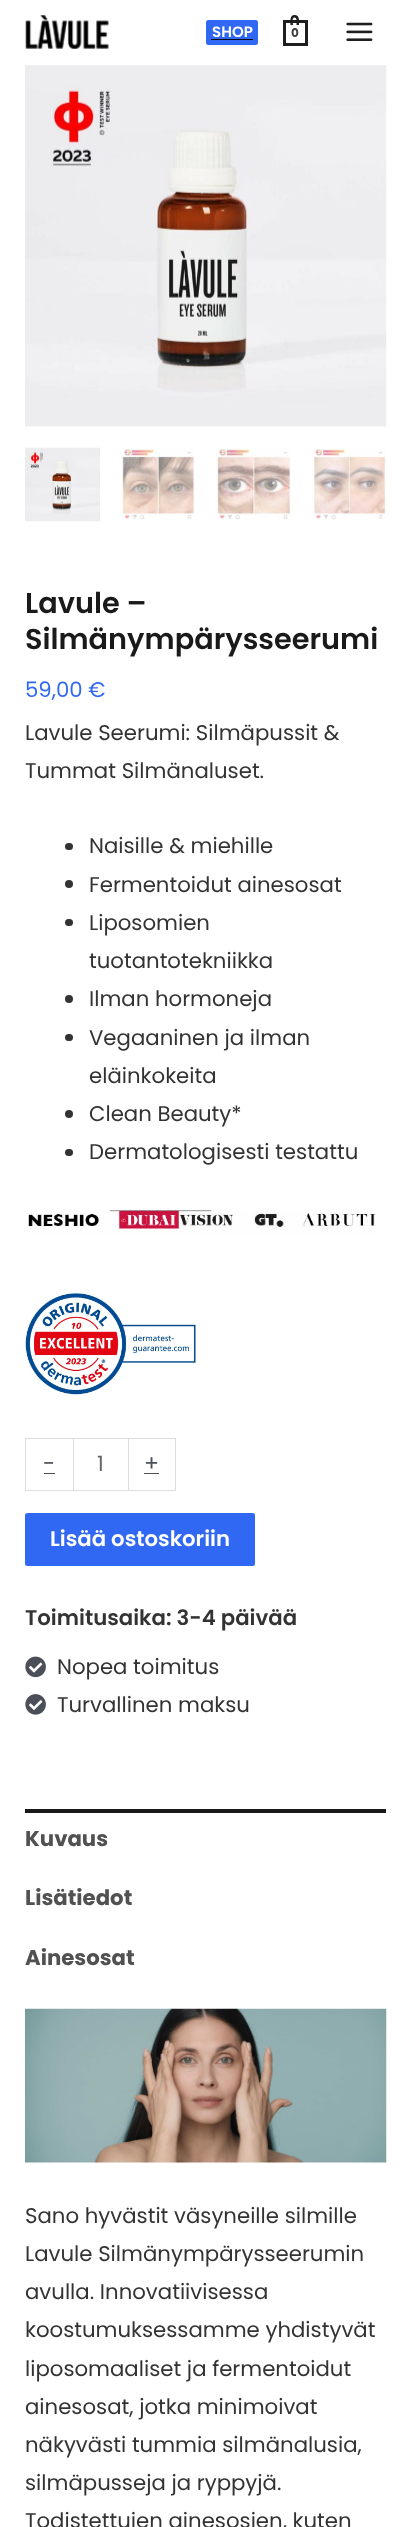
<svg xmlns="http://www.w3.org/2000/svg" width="411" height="2527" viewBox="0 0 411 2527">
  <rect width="100%" height="100%" fill="#ffffff"/>
  <rect x="25" y="1810" width="361" height="3" fill="#191919"/>
  <image x="25" y="15" width="84" height="34" href="img1.png"/>
  <rect x="206" y="20" width="52" height="25" rx="2.5" fill="#3168f3"/>
  <text x="212" y="37" font-family="Poppins" font-size="15" font-weight="600" fill="#ffffff">SHOP</text>
  <rect x="211" y="39" width="42" height="1" fill="#050a18"/>
  <rect x="284.5" y="21.5" width="22" height="23" fill="none" stroke="#1e1e1e" stroke-width="3"/>
  <path d="M294.5 15C300 15 299 21.5 299 25H290.5C290.5 21.5 289.5 15 294.5 15ZM294.5 17.5C297.5 17.5 296.5 23 296.5 25H293C293 23 291.5 17.5 294.5 17.5Z" fill="#1e1e1e" fill-rule="evenodd"/>
  <text x="291" y="37" font-family="Poppins" font-size="12" font-weight="bold" fill="#424242">0</text>
  <image x="346" y="22" width="27" height="19" href="img2.png"/>
  <image x="25" y="65" width="362" height="362" href="img3.png"/>
  <image x="25" y="447" width="75" height="75" href="img4.png"/>
  <image x="121" y="448" width="74" height="72" href="img5.png"/>
  <image x="216" y="448" width="75" height="73" href="img6.png"/>
  <image x="312" y="448" width="74" height="72" href="img7.png"/>
  <text x="25" y="613" font-family="Poppins" font-size="28.75" font-weight="600" fill="#1a1a1a">Lavule –</text>
  <text x="25" y="649" font-family="Poppins" font-size="28.75" font-weight="600" fill="#1a1a1a">Silmänympärysseerumi</text>
  <text x="25" y="697" font-family="Poppins" font-size="21.25" fill="#3168f3">59,00 €</text>
  <text x="25" y="740" font-family="Poppins" font-size="21.25" fill="#333333">Lavule Seerumi: Silmäpussit &amp;</text>
  <text x="25" y="778" font-family="Poppins" font-size="21.25" fill="#333333">Tummat Silmänaluset.</text>
  <rect x="65" y="843" width="8" height="7" rx="3.5" fill="#333333"/>
  <text x="89" y="853" font-family="Poppins" font-size="21.25" fill="#333333">Naisille &amp; miehille</text>
  <circle cx="69" cy="884" r="4" fill="#333333"/>
  <text x="89" y="892" font-family="Poppins" font-size="21.25" fill="#333333">Fermentoidut ainesosat</text>
  <rect x="65" y="919" width="8" height="7" rx="3.5" fill="#333333"/>
  <text x="89" y="930" font-family="Poppins" font-size="21.25" fill="#333333">Liposomien</text>
  <text x="89" y="968" font-family="Poppins" font-size="21.25" fill="#333333">tuotantotekniikka</text>
  <circle cx="69" cy="999" r="4" fill="#333333"/>
  <text x="89" y="1006" font-family="Poppins" font-size="21.25" fill="#333333">Ilman hormoneja</text>
  <rect x="65" y="1034" width="8" height="7" rx="3.5" fill="#333333"/>
  <text x="89" y="1045" font-family="Poppins" font-size="21.25" fill="#333333">Vegaaninen ja ilman</text>
  <text x="89" y="1083" font-family="Poppins" font-size="21.25" fill="#333333">eläinkokeita</text>
  <circle cx="69" cy="1114" r="4" fill="#333333"/>
  <text x="89" y="1121" font-family="Poppins" font-size="21.25" fill="#333333">Clean Beauty*</text>
  <rect x="65" y="1149" width="8" height="7" rx="3.5" fill="#333333"/>
  <text x="89" y="1159" font-family="Poppins" font-size="21.25" fill="#333333">Dermatologisesti testattu</text>
  <image x="28" y="1210" width="348" height="24" href="img8.png"/>
  <image x="25" y="1292" width="171" height="103" href="img9.png"/>
  <rect x="25" y="1438" width="48" height="1" fill="#dddddd"/>
  <rect x="25" y="1490" width="48" height="1" fill="#dddddd"/>
  <rect x="25" y="1438" width="1" height="53" fill="#dddddd"/>
  <text x="43" y="1471" font-family="Poppins" font-size="22" fill="#4b4f58">-</text>
  <rect x="44" y="1473" width="11" height="1" fill="#4b4f58"/>
  <rect x="73.5" y="1438.5" width="55" height="52" fill="none" stroke="#dddddd"/>
  <text x="97" y="1471" font-family="Poppins" font-size="21.25" fill="#666666">1</text>
  <rect x="129" y="1438" width="47" height="1" fill="#dddddd"/>
  <rect x="175" y="1438" width="1" height="53" fill="#dddddd"/>
  <rect x="129" y="1490" width="47" height="1" fill="#dddddd"/>
  <text x="144" y="1471" font-family="Poppins" font-size="22" fill="#4b4f58">+</text>
  <rect x="144" y="1473" width="15" height="1" fill="#4b4f58"/>
  <rect x="25" y="1513" width="230" height="53" rx="2.5" fill="#3168f3"/>
  <text x="50" y="1546" font-family="Poppins" font-size="21.25" font-weight="600" fill="#ffffff">Lisää ostoskoriin</text>
  <text x="25" y="1625" font-family="Poppins" font-size="21.25" font-weight="600" fill="#333333">Toimitusaika: 3-4 päivää</text>
  <image x="25" y="1656" width="21" height="22" href="img10.png"/>
  <text x="57" y="1674" font-family="Poppins" font-size="21.25" fill="#333333">Nopea toimitus</text>
  <image x="25" y="1694" width="21" height="21" href="img11.png"/>
  <text x="57" y="1712" font-family="Poppins" font-size="21.25" fill="#333333">Turvallinen maksu</text>
  <rect x="25" y="1809" width="361" height="1" fill="#161616"/>
  <text x="25" y="1846" font-family="Poppins" font-size="21.25" font-weight="bold" fill="#515151">Kuvaus</text>
  <text x="25" y="1905" font-family="Poppins" font-size="21.25" font-weight="bold" fill="#515151">Lisätiedot</text>
  <text x="25" y="1965" font-family="Poppins" font-size="21.25" font-weight="bold" fill="#515151">Ainesosat</text>
  <image x="25" y="2008" width="362" height="155" href="img12.png"/>
  <text x="25" y="2223" font-family="Poppins" font-size="21.25" fill="#333333">Sano hyvästit väsyneille silmille</text>
  <text x="25" y="2261" font-family="Poppins" font-size="21.25" fill="#333333">Lavule Silmänympärysseerumin</text>
  <text x="25" y="2299" font-family="Poppins" font-size="21.25" fill="#333333">avulla. Innovatiivisessa</text>
  <text x="25" y="2337" font-family="Poppins" font-size="21.25" fill="#333333">koostumuksessamme yhdistyvät</text>
  <text x="25" y="2376" font-family="Poppins" font-size="21.25" fill="#333333">liposomaaliset ja fermentoidut</text>
  <text x="25" y="2414" font-family="Poppins" font-size="21.25" fill="#333333">ainesosat, jotka minimoivat</text>
  <text x="25" y="2452" font-family="Poppins" font-size="21.25" fill="#333333">näkyvästi tummia silmänalusia,</text>
  <text x="25" y="2490" font-family="Poppins" font-size="21.25" fill="#333333">silmäpusseja ja ryppyjä.</text>
  <text x="25" y="2528" font-family="Poppins" font-size="21.25" fill="#333333">Todistettujen ainesosien, kuten</text>
</svg>
